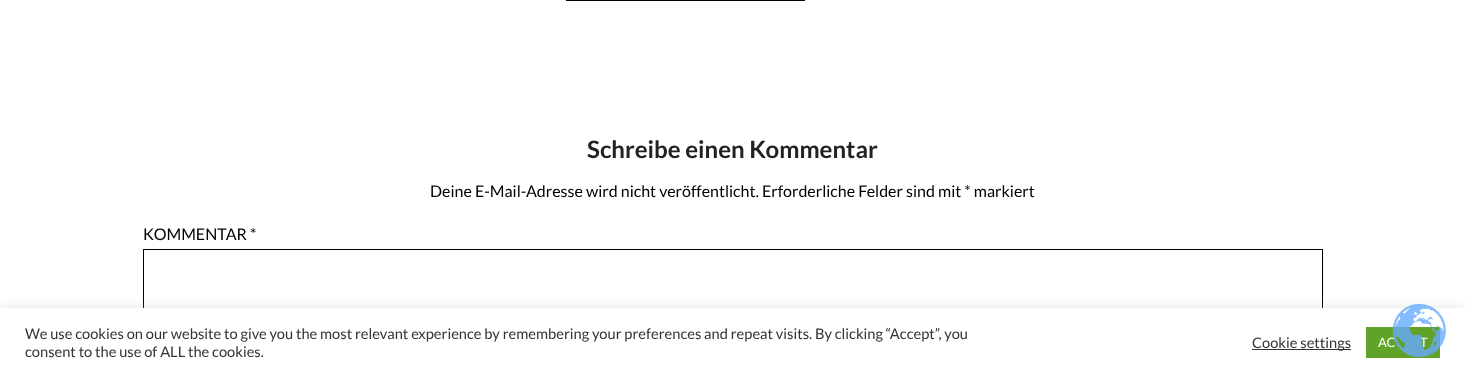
<svg xmlns="http://www.w3.org/2000/svg" width="1465" height="377" viewBox="0 0 1465 377">
  <defs>
    <filter id="blur1" x="-50%" y="-200%" width="200%" height="500%"><feGaussianBlur stdDeviation="5"/></filter>
  </defs>
  <rect width="100%" height="100%" fill="#ffffff"/>
  <rect x="566" y="0" width="239" height="1" fill="#000000"/>
  <text x="587" y="158" font-family="Lato" font-size="24" font-weight="bold" fill="#222222">Schreibe einen Kommentar</text>
  <text x="430" y="197" font-family="Lato" font-size="16" fill="#000000">Deine E-Mail-Adresse wird nicht veröffentlicht. Erforderliche Felder sind mit * markiert</text>
  <text x="143" y="240" font-family="Lato" font-size="16" fill="#000000">KOMMENTAR *</text>
  <rect x="143.5" y="249.5" width="1179" height="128" fill="none" stroke="#000000"/>
  <rect x="0" y="307" width="1465" height="69" fill="#acabab" fill-opacity="0.3" filter="url(#blur1)"/>
  <rect x="0" y="308" width="1465" height="69" fill="#ffffff"/>
  <rect x="1366" y="327" width="74" height="31" fill="#61a229"/>
  <text x="1378" y="347" font-family="Lato" font-size="13" fill="#ffffff">AC</text>
  <text x="1420" y="347" font-family="Lato" font-size="13" fill="#ffffff">T</text>
  <image x="1392" y="303" width="54" height="55" href="img1.png"/>
  <text x="25" y="339" font-family="Lato" font-size="14.67" fill="#333333">We use cookies on our website to give you the most relevant experience by remembering your preferences and repeat visits. By clicking “Accept”, you</text>
  <text x="25" y="357" font-family="Lato" font-size="14.67" fill="#333333">consent to the use of ALL the cookies.</text>
  <rect x="1252" y="349" width="99" height="1" fill="#333333"/>
  <text x="1252" y="348" font-family="Lato" font-size="14.67" fill="#333333">Cookie settings</text>
</svg>
